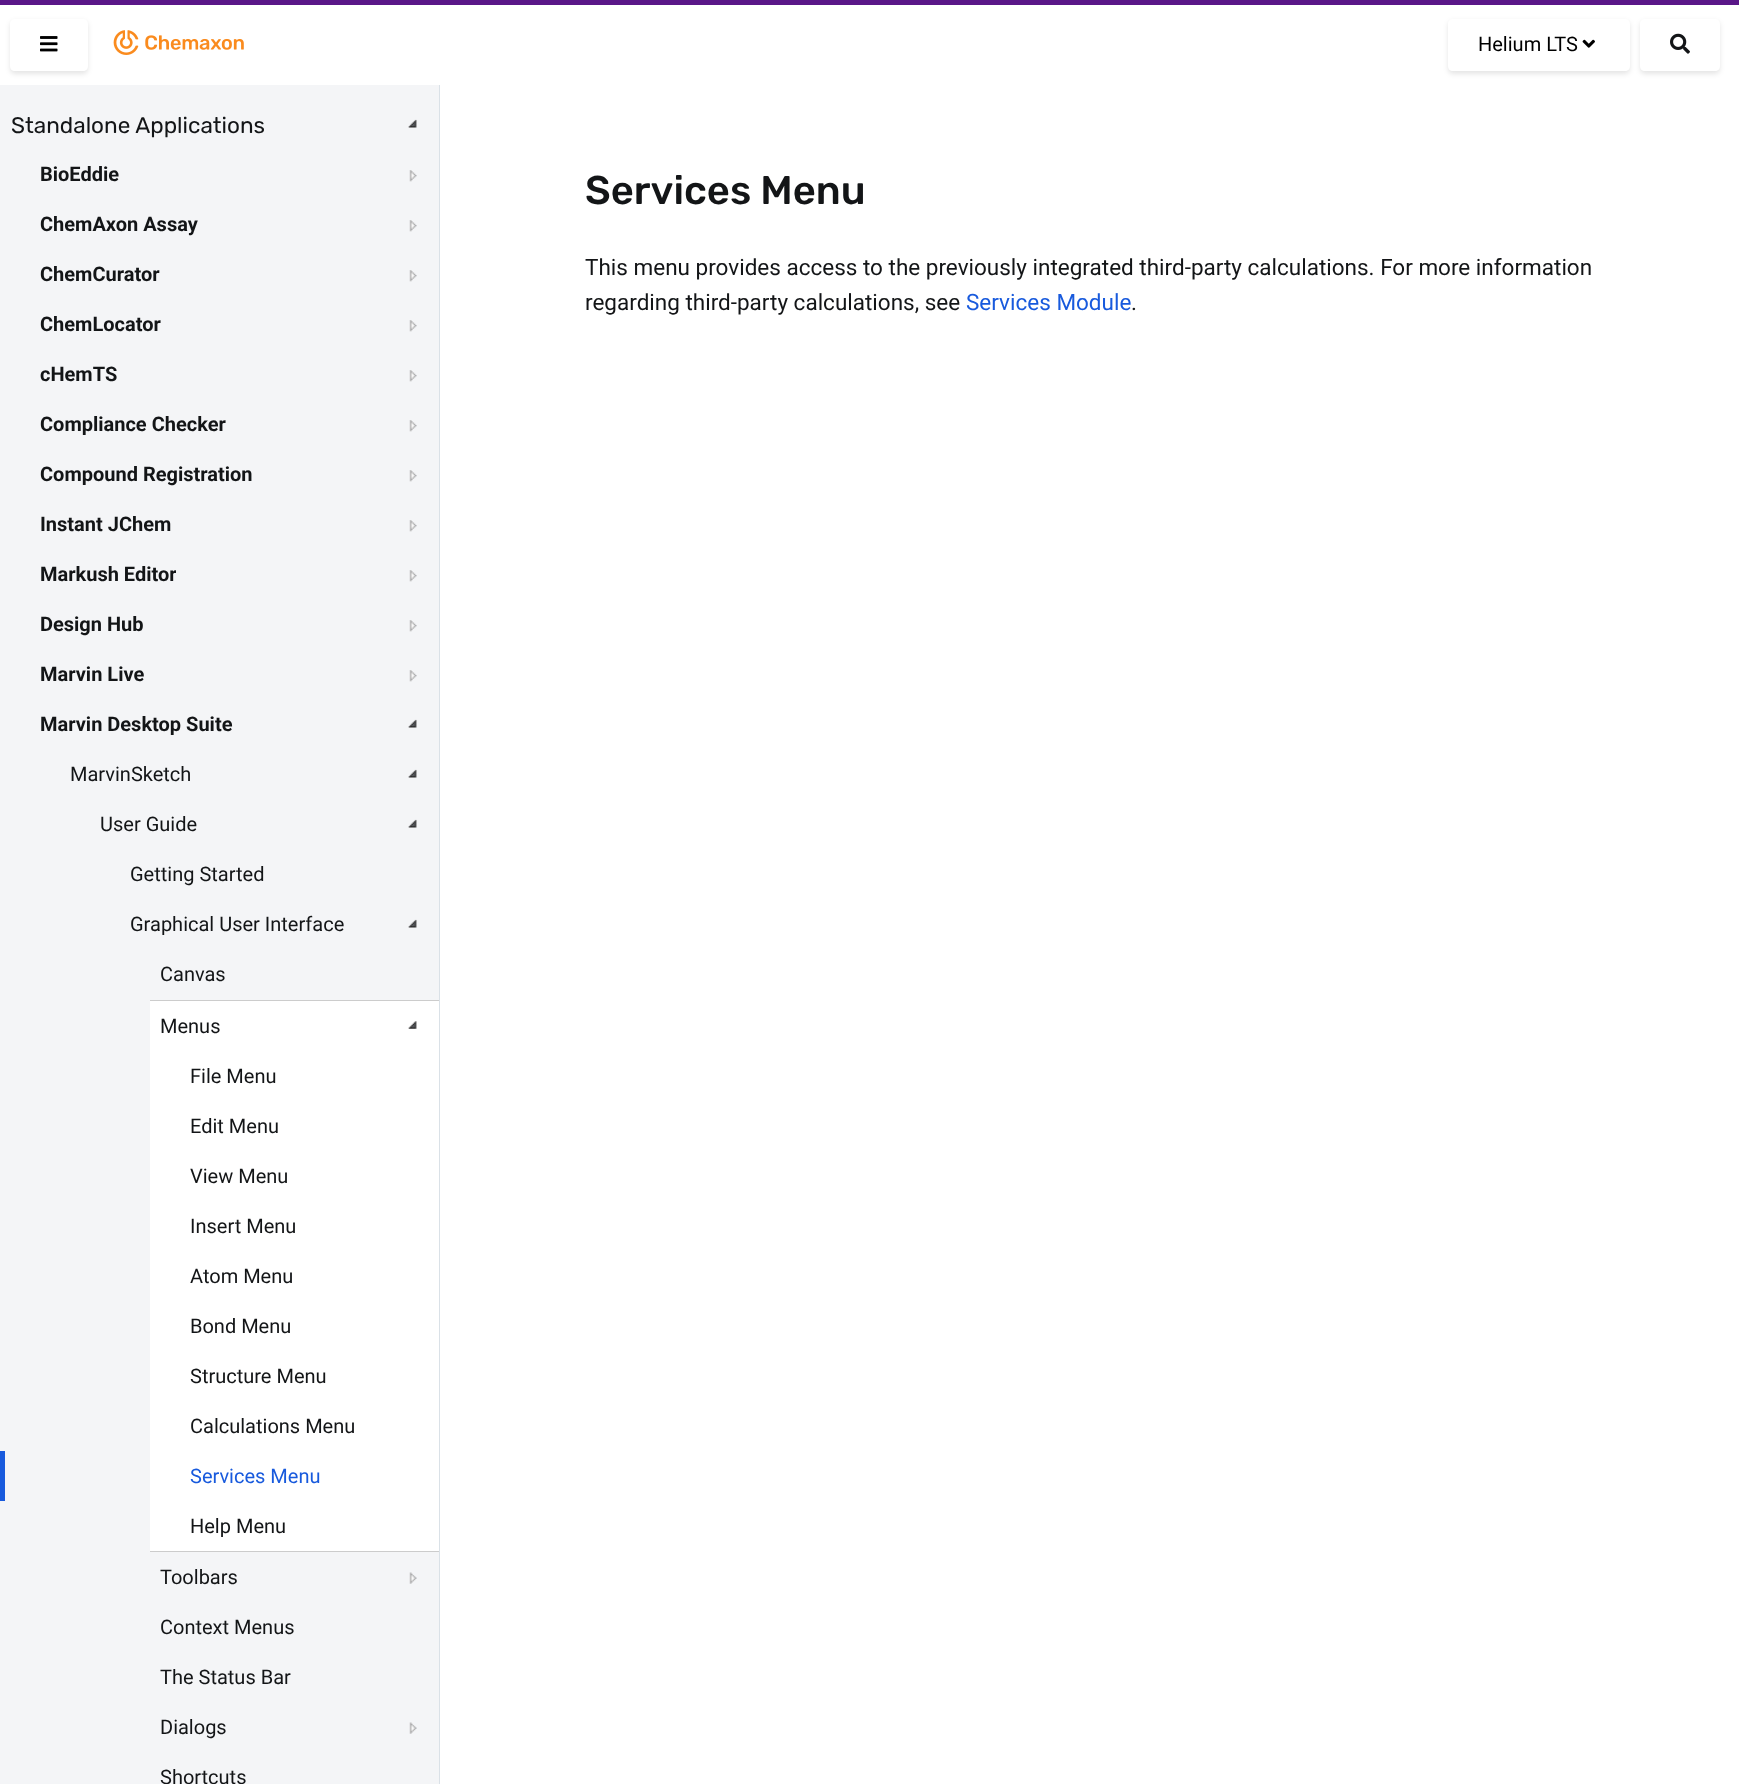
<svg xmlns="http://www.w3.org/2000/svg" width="1739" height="1784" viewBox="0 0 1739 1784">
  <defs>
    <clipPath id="clip1"><path d="M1 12H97V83H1ZM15 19H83C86 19 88 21 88 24V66C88 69 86 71 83 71H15C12 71 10 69 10 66V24C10 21 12 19 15 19Z" clip-rule="evenodd"/></clipPath>
    <filter id="blur1" x="-50%" y="-200%" width="200%" height="500%"><feGaussianBlur stdDeviation="2.5"/></filter>
    <clipPath id="clip2"><path d="M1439 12H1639V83H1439ZM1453 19H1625C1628 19 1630 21 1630 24V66C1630 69 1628 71 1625 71H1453C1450 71 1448 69 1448 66V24C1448 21 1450 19 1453 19Z" clip-rule="evenodd"/></clipPath>
    <clipPath id="clip3"><path d="M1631 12H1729V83H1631ZM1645 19H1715C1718 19 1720 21 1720 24V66C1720 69 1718 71 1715 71H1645C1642 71 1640 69 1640 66V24C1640 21 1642 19 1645 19Z" clip-rule="evenodd"/></clipPath>
    <clipPath id="clip4"><rect x="40" y="560" width="136" height="30"/></clipPath>
  </defs>
  <rect width="100%" height="100%" fill="#ffffff"/>
  <rect x="0" y="0" width="1739" height="5" fill="#5a1788"/>
  <rect x="439" y="80" width="1" height="1704" fill="#dae1e7"/>
  <rect x="439" y="80" width="1" height="5" fill="#ffffff"/>
  <g clip-path="url(#clip1)">
    <rect x="10" y="21" width="78" height="53" rx="5" fill="#000000" fill-opacity="0.1" filter="url(#blur1)"/>
  </g>
  <image x="40" y="36" width="18" height="16" href="img1.png"/>
  <image x="113" y="30" width="131" height="25" href="img2.png"/>
  <g clip-path="url(#clip2)">
    <rect x="1448" y="21" width="182" height="53" rx="5" fill="#000000" fill-opacity="0.1" filter="url(#blur1)"/>
  </g>
  <text x="1478" y="51" font-family="Roboto" font-size="20" fill="#000000">Helium LTS</text>
  <image x="1582" y="39" width="13" height="9" href="img3.png"/>
  <g clip-path="url(#clip3)">
    <rect x="1640" y="21" width="80" height="53" rx="5" fill="#000000" fill-opacity="0.1" filter="url(#blur1)"/>
  </g>
  <image x="1670" y="33" width="20" height="21" href="img4.png"/>
  <rect x="0" y="85" width="439" height="1699" fill="#f4f5f7"/>
  <text x="11" y="133" font-family="Rubik" font-size="22.5" fill="#131517">Standalone Applications</text>
  <image x="408" y="119" width="9" height="9" href="img5.png"/>
  <text x="40" y="181" font-family="Roboto" font-size="20" font-weight="bold" fill="#131517">BioEddie</text>
  <image x="409" y="170" width="8" height="12" href="img6.png"/>
  <text x="40" y="231" font-family="Roboto" font-size="20" font-weight="bold" fill="#131517">ChemAxon Assay</text>
  <image x="409" y="220" width="8" height="12" href="img6.png"/>
  <text x="40" y="281" font-family="Roboto" font-size="20" font-weight="bold" fill="#131517">ChemCurator</text>
  <image x="409" y="270" width="8" height="12" href="img6.png"/>
  <text x="40" y="331" font-family="Roboto" font-size="20" font-weight="bold" fill="#131517">ChemLocator</text>
  <image x="409" y="320" width="8" height="12" href="img6.png"/>
  <text x="40" y="381" font-family="Roboto" font-size="20" font-weight="bold" fill="#131517">cHemTS</text>
  <image x="409" y="370" width="8" height="12" href="img6.png"/>
  <text x="40" y="431" font-family="Roboto" font-size="20" font-weight="bold" fill="#131517">Compliance Checker</text>
  <image x="409" y="420" width="8" height="12" href="img6.png"/>
  <text x="40" y="481" font-family="Roboto" font-size="20" font-weight="bold" fill="#131517">Compound Registration</text>
  <image x="409" y="470" width="8" height="12" href="img6.png"/>
  <text x="40" y="531" font-family="Roboto" font-size="20" font-weight="bold" fill="#131517">Instant JChem</text>
  <image x="409" y="520" width="8" height="12" href="img6.png"/>
  <g clip-path="url(#clip4)">
    <text x="40" y="581" font-family="Roboto" font-size="20" font-weight="bold" fill="#131517">Markush Editor</text>
  </g>
  <image x="409" y="570" width="8" height="12" href="img6.png"/>
  <text x="40" y="631" font-family="Roboto" font-size="20" font-weight="bold" fill="#131517">Design Hub</text>
  <image x="409" y="620" width="8" height="12" href="img6.png"/>
  <text x="40" y="681" font-family="Roboto" font-size="20" font-weight="bold" fill="#131517">Marvin Live</text>
  <image x="409" y="670" width="8" height="12" href="img6.png"/>
  <text x="40" y="731" font-family="Roboto" font-size="20" font-weight="bold" fill="#131517">Marvin Desktop Suite</text>
  <image x="408" y="719" width="9" height="9" href="img5.png"/>
  <text x="70" y="781" font-family="Roboto" font-size="20" fill="#131517">MarvinSketch</text>
  <image x="408" y="769" width="9" height="9" href="img5.png"/>
  <text x="100" y="831" font-family="Roboto" font-size="20" fill="#131517">User Guide</text>
  <image x="408" y="819" width="9" height="9" href="img5.png"/>
  <text x="130" y="881" font-family="Roboto" font-size="20" fill="#131517">Getting Started</text>
  <text x="130" y="931" font-family="Roboto" font-size="20" fill="#131517">Graphical User Interface</text>
  <image x="408" y="919" width="9" height="9" href="img5.png"/>
  <text x="160" y="981" font-family="Roboto" font-size="20" fill="#131517">Canvas</text>
  <rect x="150" y="1001" width="289" height="550" fill="#ffffff"/>
  <rect x="150" y="1000" width="289" height="1" fill="#cccccc"/>
  <rect x="150" y="1551" width="289" height="1" fill="#cccccc"/>
  <text x="160" y="1033" font-family="Roboto" font-size="20" fill="#131517">Menus</text>
  <image x="408" y="1021" width="9" height="8" href="img7.png"/>
  <text x="190" y="1083" font-family="Roboto" font-size="20" fill="#131517">File Menu</text>
  <text x="190" y="1133" font-family="Roboto" font-size="20" fill="#131517">Edit Menu</text>
  <text x="190" y="1183" font-family="Roboto" font-size="20" fill="#131517">View Menu</text>
  <text x="190" y="1233" font-family="Roboto" font-size="20" fill="#131517">Insert Menu</text>
  <text x="190" y="1283" font-family="Roboto" font-size="20" fill="#131517">Atom Menu</text>
  <text x="190" y="1333" font-family="Roboto" font-size="20" fill="#131517">Bond Menu</text>
  <text x="190" y="1383" font-family="Roboto" font-size="20" fill="#131517">Structure Menu</text>
  <text x="190" y="1433" font-family="Roboto" font-size="20" fill="#131517">Calculations Menu</text>
  <rect x="0" y="1451" width="5" height="50" fill="#185add"/>
  <text x="190" y="1483" font-family="Roboto" font-size="20" fill="#185add">Services Menu</text>
  <text x="190" y="1533" font-family="Roboto" font-size="20" fill="#131517">Help Menu</text>
  <text x="160" y="1584" font-family="Roboto" font-size="20" fill="#131517">Toolbars</text>
  <image x="409" y="1572" width="8" height="12" href="img8.png"/>
  <text x="160" y="1634" font-family="Roboto" font-size="20" fill="#131517">Context Menus</text>
  <text x="160" y="1684" font-family="Roboto" font-size="20" fill="#131517">The Status Bar</text>
  <text x="160" y="1734" font-family="Roboto" font-size="20" fill="#131517">Dialogs</text>
  <image x="409" y="1722" width="8" height="12" href="img8.png"/>
  <text x="160" y="1784" font-family="Roboto" font-size="20" fill="#131517">Shortcuts</text>
  <text x="585" y="204" font-family="Rubik" font-size="40" font-weight="500" fill="#131517">Services Menu</text>
  <text x="585" y="275" font-family="Roboto" font-size="22.5" fill="#131517">This menu provides access to the previously integrated third-party calculations. For more information</text>
  <text x="585" y="310" font-family="Roboto" font-size="22.5" fill="#131517">regarding third-party calculations, see</text>
  <text x="966" y="310" font-family="Roboto" font-size="22.5" fill="#185add">Services Module</text>
  <text x="1131" y="310" font-family="Roboto" font-size="22.5" fill="#131517">.</text>
</svg>
